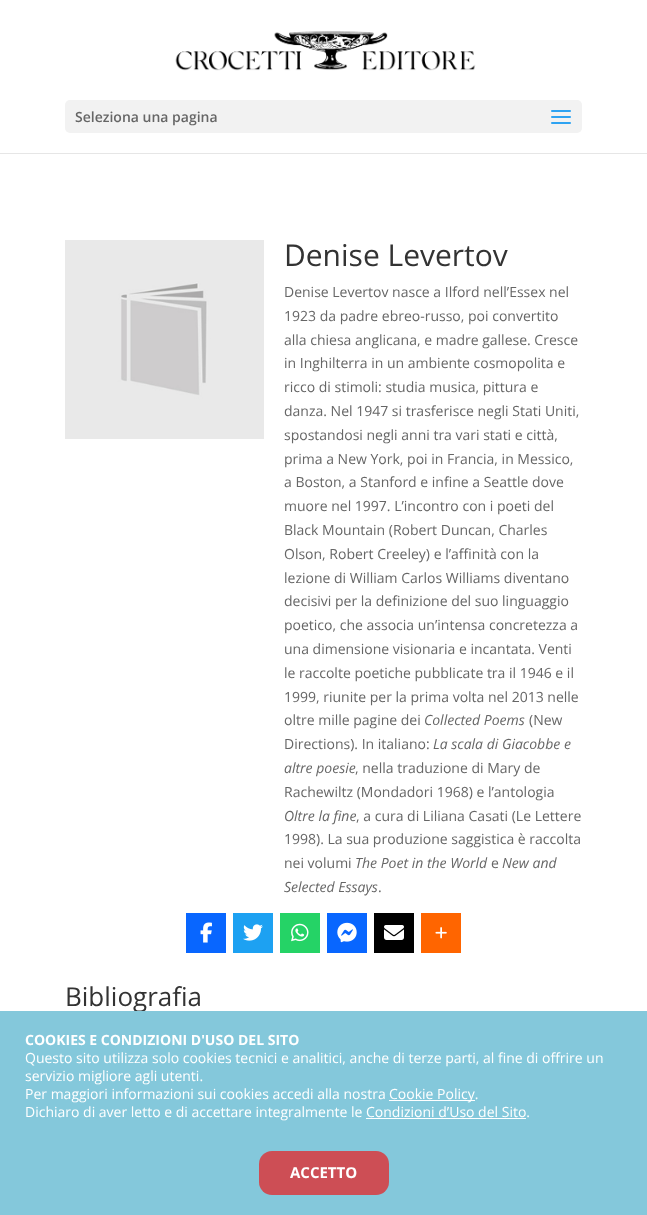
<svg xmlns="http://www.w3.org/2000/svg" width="647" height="1215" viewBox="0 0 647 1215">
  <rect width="100%" height="100%" fill="#ffffff"/>
  <rect x="0" y="153" width="647" height="1" fill="#e6e6e6"/>
  <image x="175" y="31" width="301" height="40" href="img1.png"/>
  <rect x="65" y="100" width="517" height="33" rx="5" fill="#f2f2f2"/>
  <text x="75" y="122" font-family="Open Sans" font-size="14" font-weight="600" fill="#666666">Seleziona una pagina</text>
  <image x="551" y="110" width="20" height="14" href="img2.png"/>
  <image x="65" y="240" width="199" height="199" href="img3.png"/>
  <text x="284" y="266" font-family="Open Sans" font-size="30" fill="#333333">Denise Levertov</text>
  <text x="284" y="297" font-family="Open Sans" font-size="14" fill="#666666">Denise Levertov nasce a Ilford nell’Essex nel</text>
  <text x="284" y="321" font-family="Open Sans" font-size="14" fill="#666666">1923 da padre ebreo-russo, poi convertito</text>
  <text x="284" y="345" font-family="Open Sans" font-size="14" fill="#666666">alla chiesa anglicana, e madre gallese. Cresce</text>
  <text x="284" y="368" font-family="Open Sans" font-size="14" fill="#666666">in Inghilterra in un ambiente cosmopolita e</text>
  <text x="284" y="392" font-family="Open Sans" font-size="14" fill="#666666">ricco di stimoli: studia musica, pittura e</text>
  <text x="284" y="416" font-family="Open Sans" font-size="14" fill="#666666">danza. Nel 1947 si trasferisce negli Stati Uniti,</text>
  <text x="284" y="440" font-family="Open Sans" font-size="14" fill="#666666">spostandosi negli anni tra vari stati e città,</text>
  <text x="284" y="464" font-family="Open Sans" font-size="14" fill="#666666">prima a New York, poi in Francia, in Messico,</text>
  <text x="284" y="487" font-family="Open Sans" font-size="14" fill="#666666">a Boston, a Stanford e infine a Seattle dove</text>
  <text x="284" y="511" font-family="Open Sans" font-size="14" fill="#666666">muore nel 1997. L’incontro con i poeti del</text>
  <text x="284" y="535" font-family="Open Sans" font-size="14" fill="#666666">Black Mountain (Robert Duncan, Charles</text>
  <text x="284" y="559" font-family="Open Sans" font-size="14" fill="#666666">Olson, Robert Creeley) e l’affinità con la</text>
  <text x="284" y="583" font-family="Open Sans" font-size="14" fill="#666666">lezione di William Carlos Williams diventano</text>
  <text x="284" y="606" font-family="Open Sans" font-size="14" fill="#666666">decisivi per la definizione del suo linguaggio</text>
  <text x="284" y="630" font-family="Open Sans" font-size="14" fill="#666666">poetico, che associa un’intensa concretezza a</text>
  <text x="284" y="654" font-family="Open Sans" font-size="14" fill="#666666">una dimensione visionaria e incantata. Venti</text>
  <text x="284" y="678" font-family="Open Sans" font-size="14" fill="#666666">le raccolte poetiche pubblicate tra il 1946 e il</text>
  <text x="284" y="702" font-family="Open Sans" font-size="14" fill="#666666">1999, riunite per la prima volta nel 2013 nelle</text>
  <text x="284" y="725" font-family="Open Sans" font-size="14" fill="#666666">oltre mille pagine dei</text>
  <text x="424" y="725" font-family="Open Sans" font-size="14" font-style="italic" fill="#666666">Collected Poems</text>
  <text x="529" y="725" font-family="Open Sans" font-size="14" fill="#666666">(New</text>
  <text x="284" y="749" font-family="Open Sans" font-size="14" fill="#666666">Directions). In italiano:</text>
  <text x="433" y="749" font-family="Open Sans" font-size="14" font-style="italic" fill="#666666">La scala di Giacobbe e</text>
  <text x="284" y="773" font-family="Open Sans" font-size="14" font-style="italic" fill="#666666">altre poesie</text>
  <text x="355" y="773" font-family="Open Sans" font-size="14" fill="#666666">, nella traduzione di Mary de</text>
  <text x="284" y="797" font-family="Open Sans" font-size="14" fill="#666666">Rachewiltz (Mondadori 1968) e l’antologia</text>
  <text x="284" y="821" font-family="Open Sans" font-size="14" font-style="italic" fill="#666666">Oltre la fine</text>
  <text x="356" y="821" font-family="Open Sans" font-size="14" fill="#666666">, a cura di Liliana Casati (Le Lettere</text>
  <text x="284" y="844" font-family="Open Sans" font-size="14" fill="#666666">1998). La sua produzione saggistica è raccolta</text>
  <text x="284" y="868" font-family="Open Sans" font-size="14" fill="#666666">nei volumi</text>
  <text x="355" y="868" font-family="Open Sans" font-size="14" font-style="italic" fill="#666666">The Poet in the World</text>
  <text x="491" y="868" font-family="Open Sans" font-size="14" fill="#666666">e</text>
  <text x="502" y="868" font-family="Open Sans" font-size="14" font-style="italic" fill="#666666">New and</text>
  <text x="284" y="892" font-family="Open Sans" font-size="14" font-style="italic" fill="#666666">Selected Essays</text>
  <text x="378" y="892" font-family="Open Sans" font-size="14" fill="#666666">.</text>
  <rect x="186" y="913" width="40" height="40" fill="#0866ff"/>
  <image x="200" y="922" width="12" height="21" href="img4.png"/>
  <rect x="233" y="913" width="40" height="40" fill="#1da1f2"/>
  <image x="243" y="924" width="20" height="17" href="img5.png"/>
  <rect x="280" y="913" width="40" height="40" fill="#25d366"/>
  <image x="291" y="923" width="18" height="19" href="img6.png"/>
  <rect x="327" y="913" width="40" height="40" fill="#0866ff"/>
  <image x="337" y="922" width="20" height="21" href="img7.png"/>
  <rect x="374" y="913" width="40" height="40" fill="#000000"/>
  <image x="384" y="925" width="20" height="15" href="img8.png"/>
  <rect x="421" y="913" width="40" height="40" fill="#ff6500"/>
  <image x="435" y="927" width="12" height="12" href="img9.png"/>
  <text x="65" y="1006" font-family="Open Sans" font-size="26" fill="#333333">Bibliografia</text>
  <rect x="0" y="1011" width="647" height="204" fill="#84c8db"/>
  <text x="25" y="1045" font-family="Open Sans" font-size="14" font-weight="bold" fill="#ffffff">COOKIES E CONDIZIONI D'USO DEL SITO</text>
  <text x="25" y="1063" font-family="Open Sans" font-size="14" fill="#ffffff">Questo sito utilizza solo cookies tecnici e analitici, anche di terze parti, al fine di offrire un</text>
  <text x="25" y="1081" font-family="Open Sans" font-size="14" fill="#ffffff">servizio migliore agli utenti.</text>
  <text x="25" y="1099" font-family="Open Sans" font-size="14" fill="#ffffff">Per maggiori informazioni sui cookies accedi alla nostra</text>
  <rect x="389" y="1100" width="86" height="1" fill="#ffffff"/>
  <text x="389" y="1099" font-family="Open Sans" font-size="14" fill="#ffffff">Cookie Policy.</text>
  <text x="25" y="1117" font-family="Open Sans" font-size="14" fill="#ffffff">Dichiaro di aver letto e di accettare integralmente le Condizioni d’Uso del Sito.</text>
  <rect x="366" y="1118" width="160" height="1" fill="#ffffff"/>
  <rect x="259" y="1151" width="130" height="44" rx="13" fill="#cd4e55"/>
  <text x="290" y="1178" font-family="Open Sans" font-size="15" font-weight="bold" fill="#ffffff">ACCETTO</text>
</svg>
